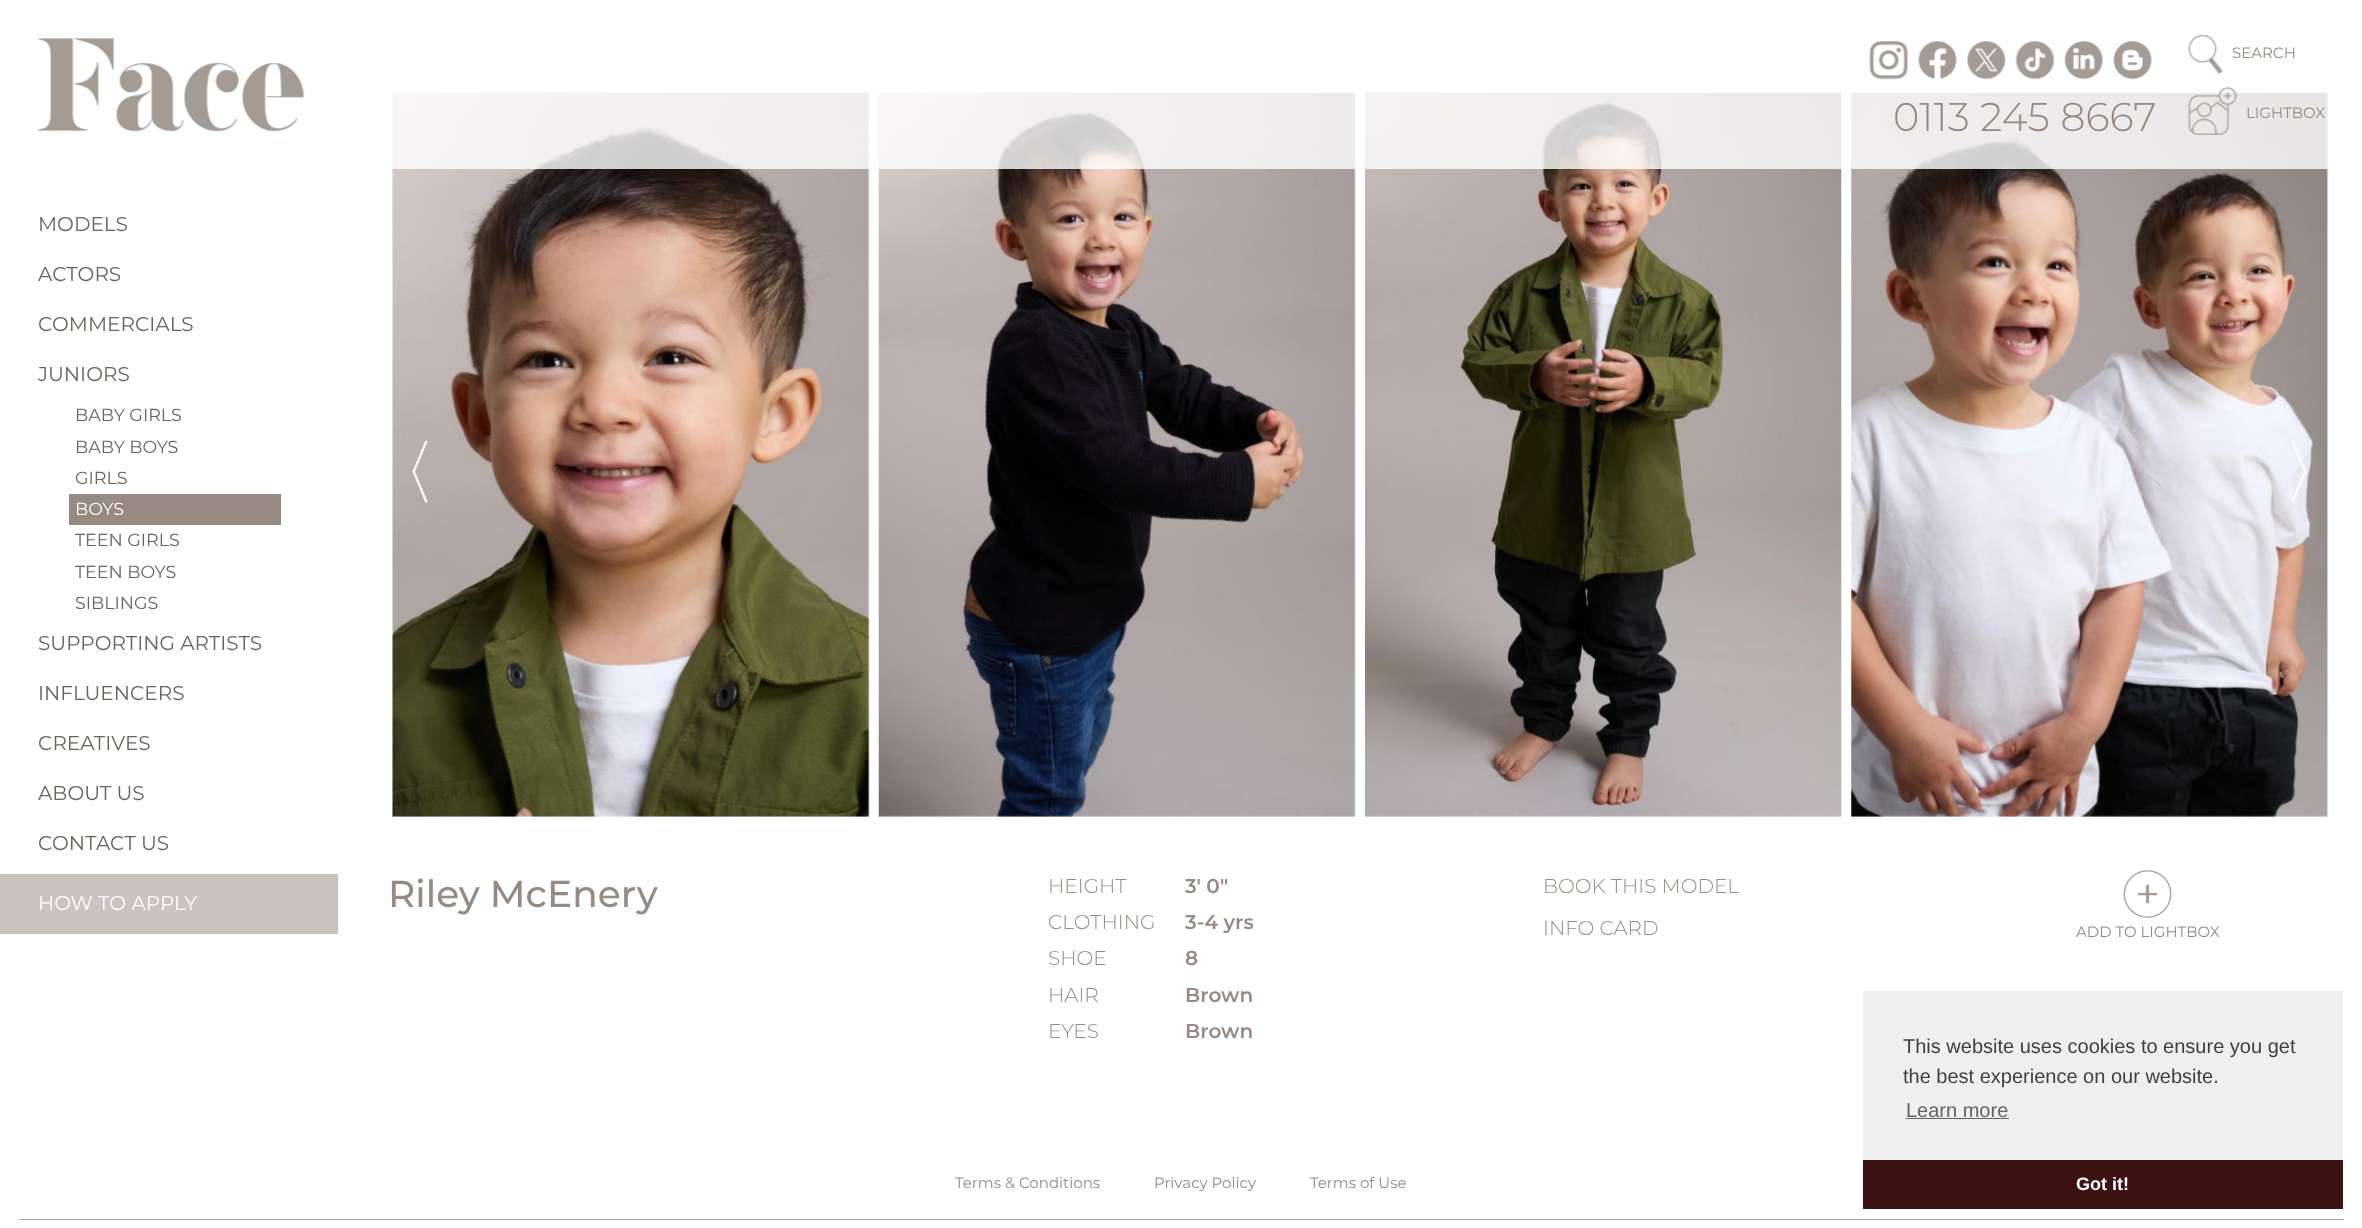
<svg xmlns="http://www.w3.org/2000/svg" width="2362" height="1228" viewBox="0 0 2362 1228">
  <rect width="100%" height="100%" fill="#ffffff"/>
  <image x="392" y="92" width="478" height="725" href="img10.png"/>
  <image x="878" y="92" width="478" height="725" href="img11.png"/>
  <image x="1365" y="92" width="477" height="725" href="img12.png"/>
  <image x="1851" y="92" width="478" height="725" href="img13.png"/>
  <rect x="392" y="92" width="1937" height="77" fill="#ffffff" fill-opacity="0.8"/>
  <image x="38" y="38" width="267" height="94" href="img1.png"/>
  <image x="1869" y="41" width="39" height="39" href="img2.png"/>
  <image x="1918" y="41" width="39" height="39" href="img3.png"/>
  <image x="1967" y="41" width="39" height="39" href="img4.png"/>
  <image x="2015" y="41" width="40" height="39" href="img5.png"/>
  <image x="2064" y="41" width="39" height="39" href="img6.png"/>
  <image x="2113" y="41" width="39" height="39" href="img7.png"/>
  <text x="1893" y="131" font-family="Montserrat" font-size="40" font-weight="300" fill="#968a82">0113 245 8667</text>
  <image x="2188" y="34" width="35" height="41" href="img8.png"/>
  <text x="2232" y="58" font-family="Montserrat" font-size="15" fill="#968a82">SEARCH</text>
  <image x="2188" y="87" width="49" height="48" href="img9.png"/>
  <text x="2246" y="118" font-family="Montserrat" font-size="15" fill="#968a82">LIGHTBOX</text>
  <text x="38" y="231" font-family="Montserrat" font-size="20" fill="#69635c">MODELS</text>
  <text x="38" y="281" font-family="Montserrat" font-size="20" fill="#69635c">ACTORS</text>
  <text x="38" y="331" font-family="Montserrat" font-size="20" fill="#69635c">COMMERCIALS</text>
  <text x="38" y="381" font-family="Montserrat" font-size="20" fill="#69635c">JUNIORS</text>
  <text x="75" y="421" font-family="Montserrat" font-size="17.5" fill="#69635c">BABY GIRLS</text>
  <text x="75" y="453" font-family="Montserrat" font-size="17.5" fill="#69635c">BABY BOYS</text>
  <text x="75" y="484" font-family="Montserrat" font-size="17.5" fill="#69635c">GIRLS</text>
  <rect x="69" y="494" width="212" height="31" fill="#968a82"/>
  <text x="75" y="515" font-family="Montserrat" font-size="17.5" fill="#ffffff">BOYS</text>
  <text x="75" y="546" font-family="Montserrat" font-size="17.5" fill="#69635c">TEEN GIRLS</text>
  <text x="75" y="578" font-family="Montserrat" font-size="17.5" fill="#69635c">TEEN BOYS</text>
  <text x="75" y="609" font-family="Montserrat" font-size="17.5" fill="#69635c">SIBLINGS</text>
  <text x="38" y="650" font-family="Montserrat" font-size="20" fill="#69635c">SUPPORTING ARTISTS</text>
  <text x="38" y="700" font-family="Montserrat" font-size="20" fill="#69635c">INFLUENCERS</text>
  <text x="38" y="750" font-family="Montserrat" font-size="20" fill="#69635c">CREATIVES</text>
  <text x="38" y="800" font-family="Montserrat" font-size="20" fill="#69635c">ABOUT US</text>
  <text x="38" y="850" font-family="Montserrat" font-size="20" fill="#69635c">CONTACT US</text>
  <rect x="0" y="874" width="338" height="60" fill="#cac3bf"/>
  <text x="38" y="910" font-family="Montserrat" font-size="20" fill="#ffffff">HOW TO APPLY</text>
  <image x="412" y="440" width="16" height="63" href="img14.png"/>
  <image x="2291" y="440" width="16" height="63" href="img15.png"/>
  <text x="388" y="907" font-family="Montserrat" font-size="37.5" font-weight="500" fill="#968a82">Riley McEnery</text>
  <text x="1048" y="893" font-family="Montserrat" font-size="20" font-weight="300" fill="#968a82">HEIGHT</text>
  <text x="1185" y="893" font-family="Montserrat" font-size="20" font-weight="600" fill="#968a82">3' 0"</text>
  <text x="1048" y="929" font-family="Montserrat" font-size="20" font-weight="300" fill="#968a82">CLOTHING</text>
  <text x="1185" y="929" font-family="Montserrat" font-size="20" font-weight="600" fill="#968a82">3-4 yrs</text>
  <text x="1048" y="965" font-family="Montserrat" font-size="20" font-weight="300" fill="#968a82">SHOE</text>
  <text x="1185" y="965" font-family="Montserrat" font-size="20" font-weight="600" fill="#968a82">8</text>
  <text x="1048" y="1002" font-family="Montserrat" font-size="20" font-weight="300" fill="#968a82">HAIR</text>
  <text x="1185" y="1002" font-family="Montserrat" font-size="20" font-weight="600" fill="#968a82">Brown</text>
  <text x="1048" y="1038" font-family="Montserrat" font-size="20" font-weight="300" fill="#968a82">EYES</text>
  <text x="1185" y="1038" font-family="Montserrat" font-size="20" font-weight="600" fill="#968a82">Brown</text>
  <text x="1543" y="893" font-family="Montserrat" font-size="20" font-weight="300" fill="#968a82">BOOK THIS MODEL</text>
  <text x="1543" y="935" font-family="Montserrat" font-size="20" font-weight="300" fill="#968a82">INFO CARD</text>
  <image x="2123" y="870" width="49" height="48" href="img16.png"/>
  <text x="2076" y="937" font-family="Montserrat" font-size="15" fill="#968a82">ADD TO LIGHTBOX</text>
  <rect x="19" y="1219" width="2325" height="1" fill="#aba29b"/>
  <text x="955" y="1188" font-family="Montserrat" font-size="15" fill="#968a82">Terms &amp; Conditions</text>
  <text x="1154" y="1188" font-family="Montserrat" font-size="15" fill="#968a82">Privacy Policy</text>
  <text x="1310" y="1188" font-family="Montserrat" font-size="15" fill="#968a82">Terms of Use</text>
  <rect x="1863" y="991" width="480" height="169" fill="#efefef"/>
  <text x="1903" y="1053" font-family="Liberation Sans" font-size="20" fill="#404040">This website uses cookies to ensure you get</text>
  <text x="1903" y="1083" font-family="Liberation Sans" font-size="20" fill="#404040">the best experience on our website.</text>
  <text x="1906" y="1117" font-family="Liberation Sans" font-size="20" fill="#636363">Learn more</text>
  <rect x="1906" y="1118" width="103" height="1" fill="#636363"/>
  <rect x="1863" y="1160" width="480" height="49" fill="#3d1212"/>
  <text x="2076" y="1190" font-family="Liberation Sans" font-size="18" font-weight="bold" fill="#ffffff">Got it!</text>
</svg>
